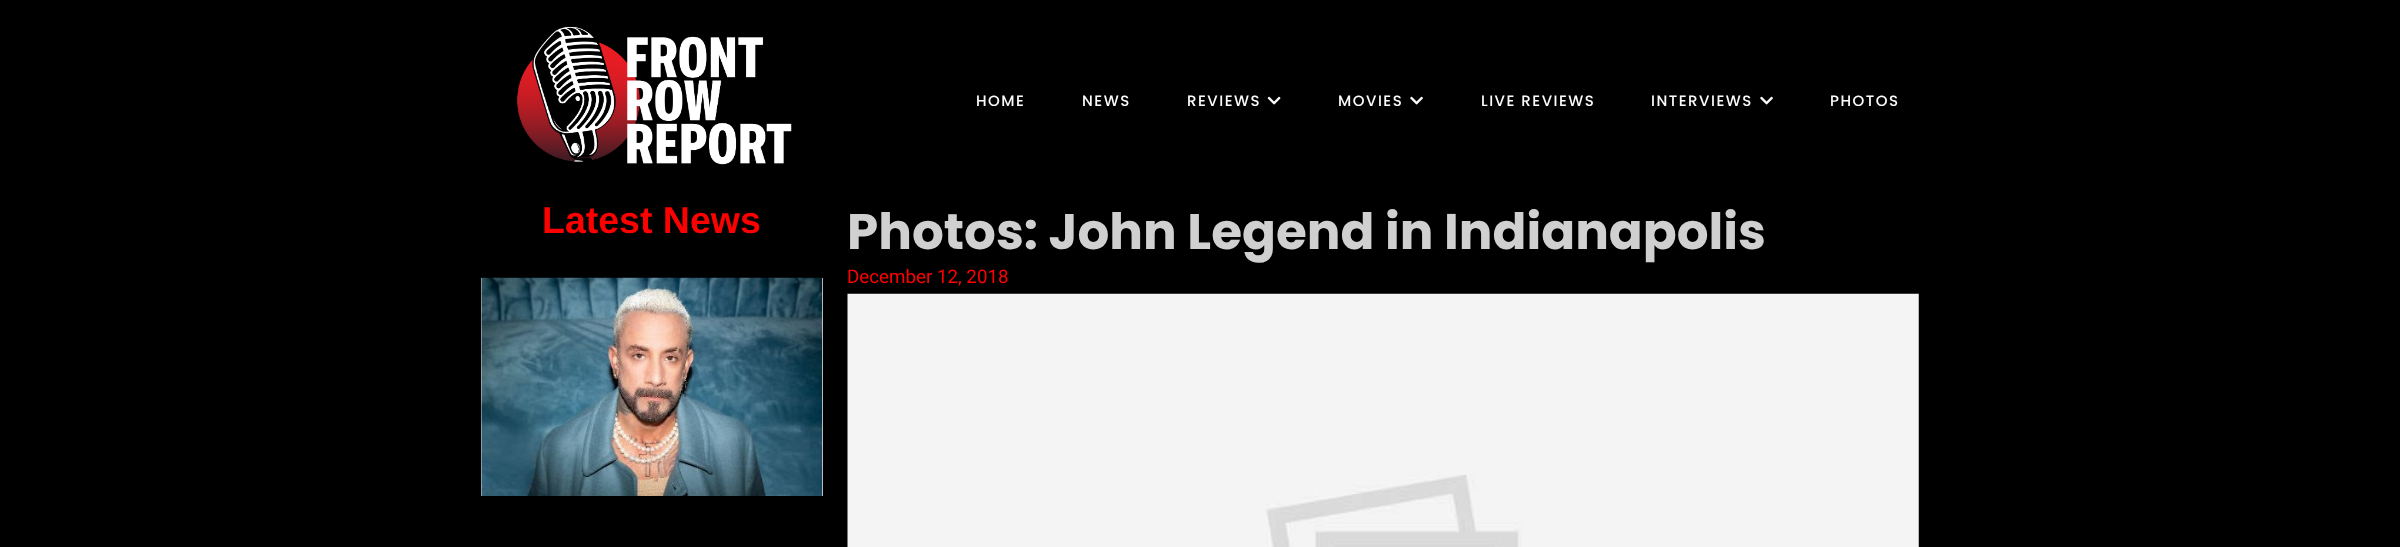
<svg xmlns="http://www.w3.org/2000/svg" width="2400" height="547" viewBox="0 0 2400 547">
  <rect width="100%" height="100%" fill="#000000"/>
  <image x="517" y="27" width="275" height="138" href="img1.png"/>
  <text x="976" y="106" font-family="Poppins" font-size="15" font-weight="500" letter-spacing="1.5" fill="#fcfcfc">HOME</text>
  <text x="1082" y="106" font-family="Poppins" font-size="15" font-weight="500" letter-spacing="1.5" fill="#fcfcfc">NEWS</text>
  <text x="1187" y="106" font-family="Poppins" font-size="15" font-weight="500" letter-spacing="1.5" fill="#fcfcfc">REVIEWS</text>
  <image x="1267" y="96" width="14" height="9" href="img2.png"/>
  <text x="1338" y="106" font-family="Poppins" font-size="15" font-weight="500" letter-spacing="1.5" fill="#fcfcfc">MOVIES</text>
  <image x="1410" y="96" width="13" height="9" href="img3.png"/>
  <text x="1481" y="106" font-family="Poppins" font-size="15" font-weight="500" letter-spacing="1.5" fill="#fcfcfc">LIVE REVIEWS</text>
  <text x="1651" y="106" font-family="Poppins" font-size="15" font-weight="500" letter-spacing="1.5" fill="#fcfcfc">INTERVIEWS</text>
  <image x="1760" y="96" width="13" height="9" href="img3.png"/>
  <text x="1830" y="106" font-family="Poppins" font-size="15" font-weight="500" letter-spacing="1.5" fill="#fcfcfc">PHOTOS</text>
  <text x="542" y="233" font-family="Liberation Sans" font-size="37.5" font-weight="bold" fill="#ff0000">Latest News</text>
  <rect x="481" y="278" width="342" height="218" fill="#eaeaeb"/>
  <image x="481" y="277" width="342" height="219" href="img4.png"/>
  <text x="847" y="249" font-family="Poppins" font-size="50" font-weight="bold" fill="#d0d0d0">Photos: John Legend in Indianapolis</text>
  <text x="847" y="283" font-family="Roboto" font-size="18.75" fill="#ff0000">December 12, 2018</text>
  <image x="847" y="293" width="1072" height="254" href="img5.png"/>
</svg>
